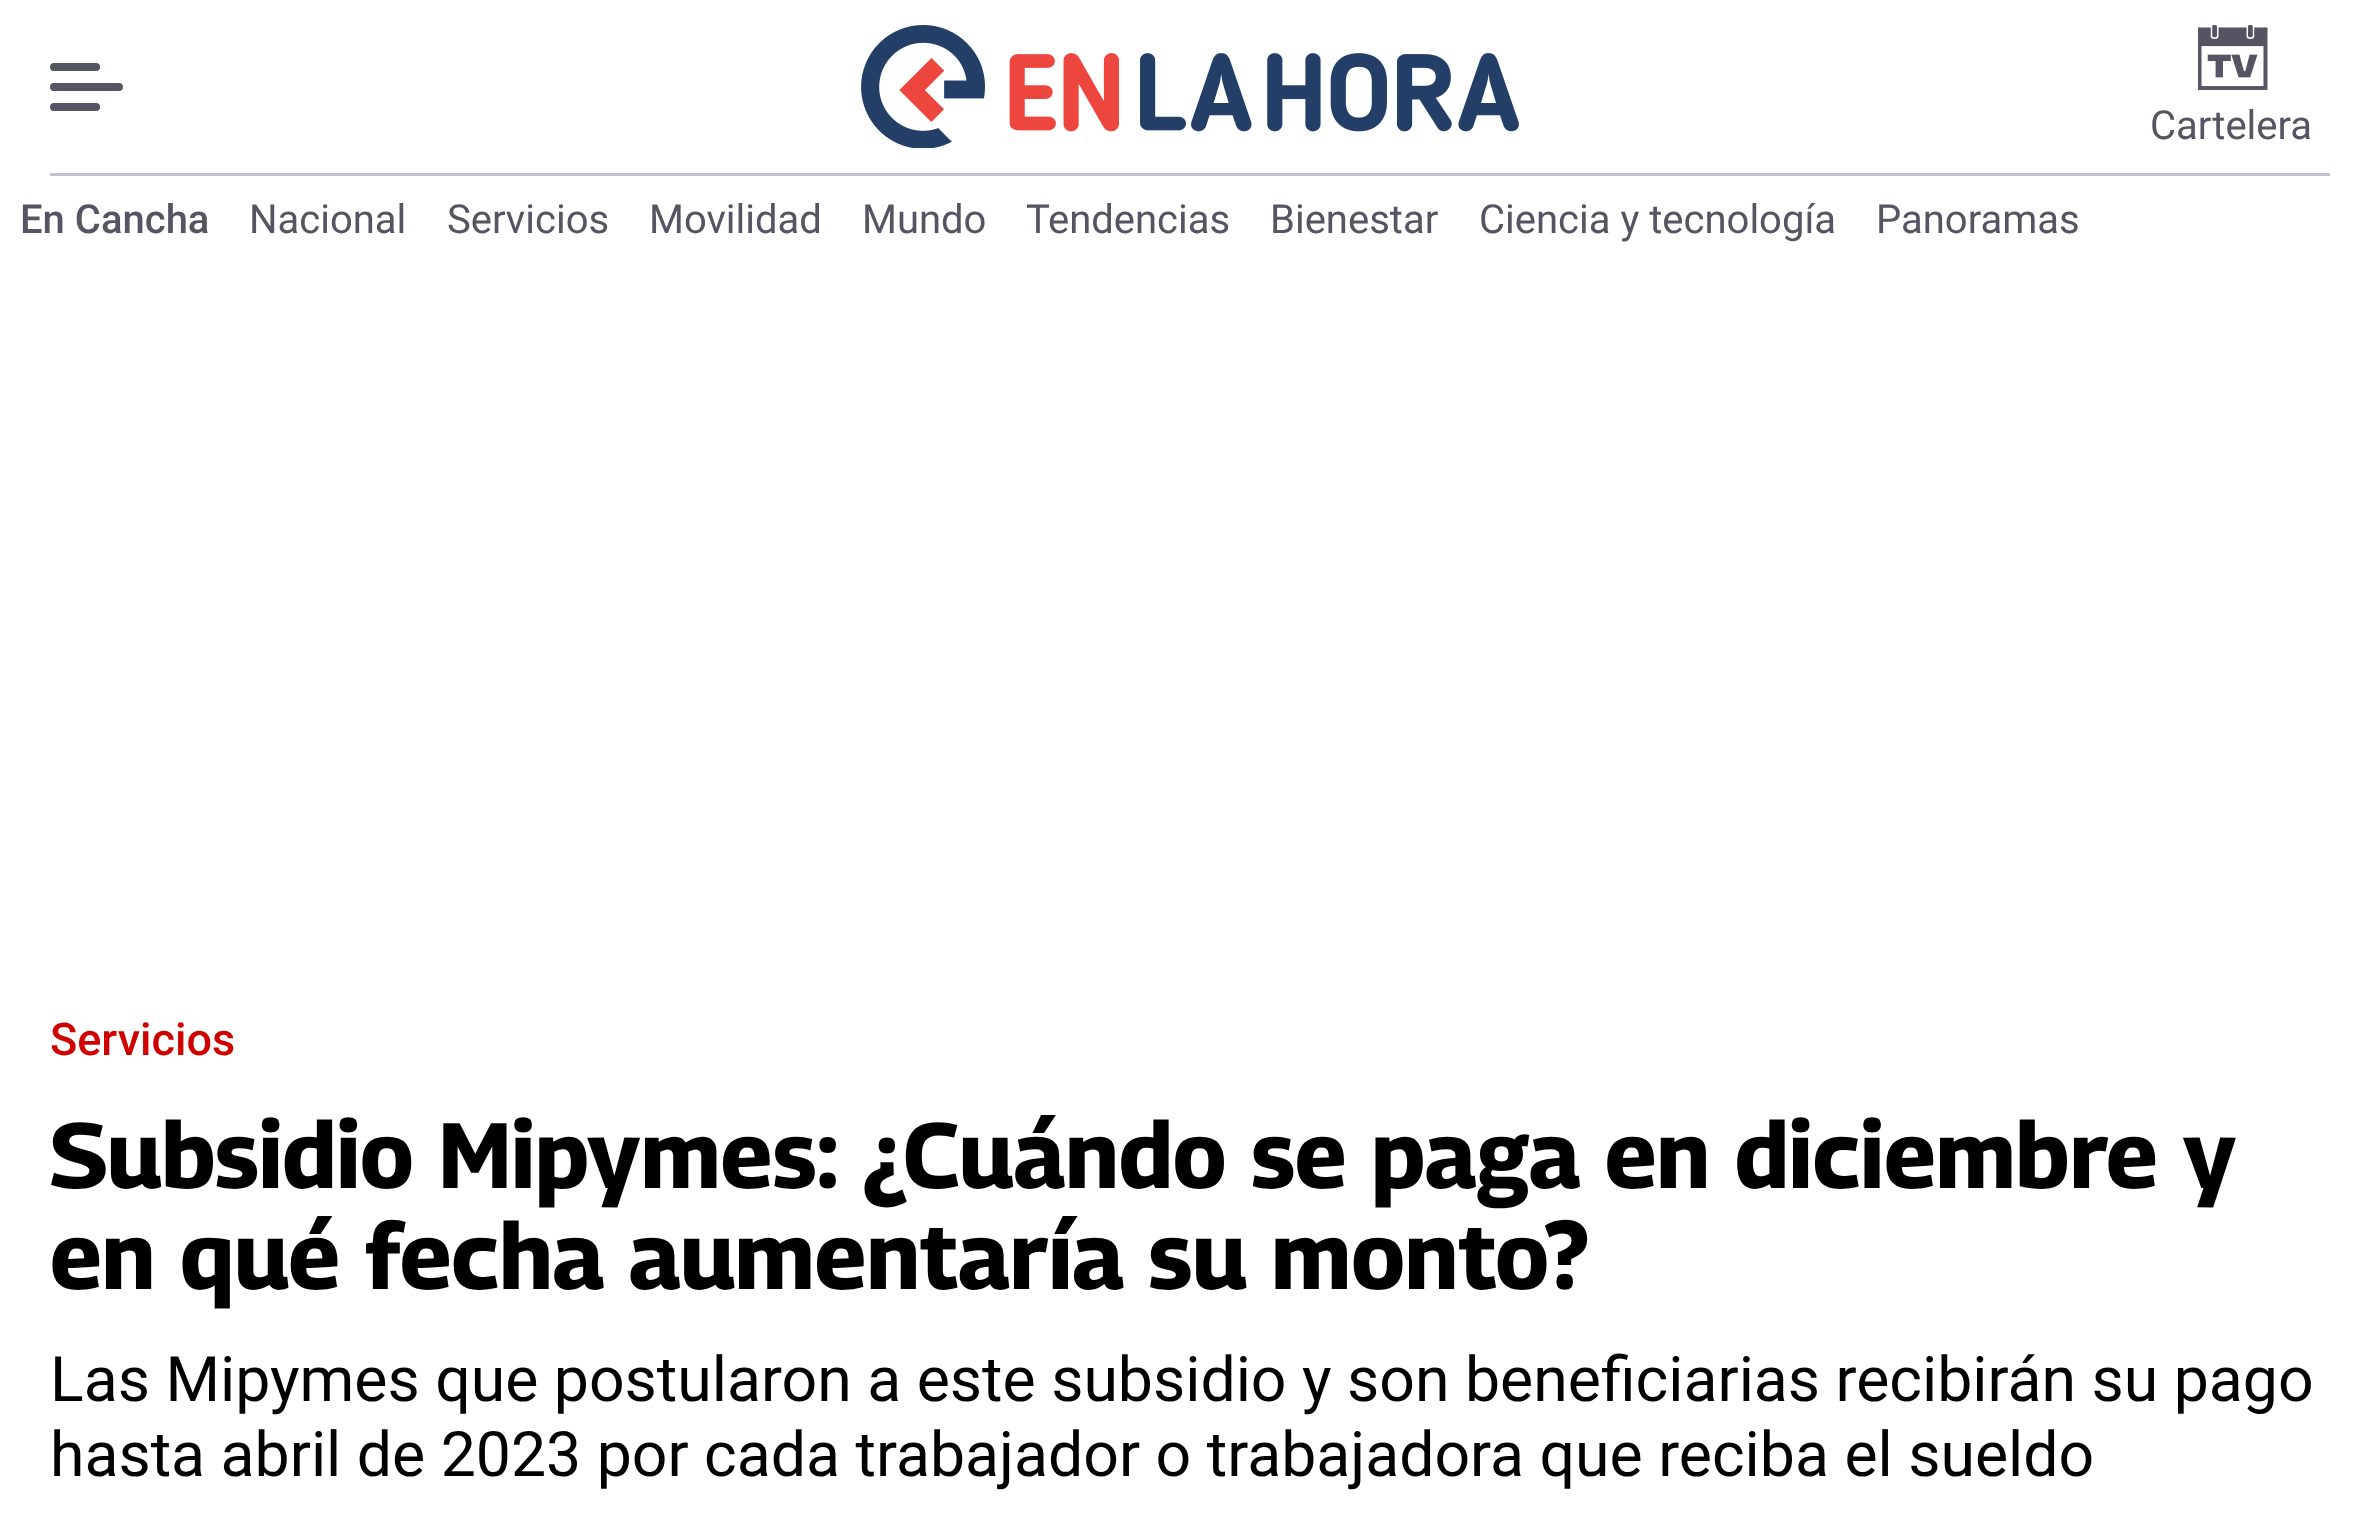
<svg xmlns="http://www.w3.org/2000/svg" width="2378" height="1519" viewBox="0 0 2378 1519">
  <rect width="100%" height="100%" fill="#ffffff"/>
  <rect x="50" y="173" width="2280" height="3" fill="#c2c2cf"/>
  <rect x="50" y="63" width="50" height="8" rx="4" fill="#545462"/>
  <rect x="50" y="83" width="73" height="8" rx="4" fill="#545462"/>
  <rect x="50" y="103" width="50" height="8" rx="4" fill="#545462"/>
  <image x="861" y="25" width="658" height="123" href="img1.png"/>
  <image x="2198" y="25" width="70" height="65" href="img2.png"/>
  <text x="2150" y="139" font-family="Roboto" font-size="40" fill="#545462">Cartelera</text>
  <text x="20" y="233" font-family="Roboto" font-size="40" font-weight="500" fill="#545462">En Cancha</text>
  <text x="249" y="233" font-family="Roboto" font-size="40" fill="#545462">Nacional</text>
  <text x="447" y="233" font-family="Roboto" font-size="40" fill="#545462">Servicios</text>
  <text x="649" y="233" font-family="Roboto" font-size="40" fill="#545462">Movilidad</text>
  <text x="862" y="233" font-family="Roboto" font-size="40" fill="#545462">Mundo</text>
  <text x="1026" y="233" font-family="Roboto" font-size="40" fill="#545462">Tendencias</text>
  <text x="1270" y="233" font-family="Roboto" font-size="40" fill="#545462">Bienestar</text>
  <text x="1479" y="233" font-family="Roboto" font-size="40" fill="#545462">Ciencia y tecnología</text>
  <text x="1876" y="233" font-family="Roboto" font-size="40" fill="#545462">Panoramas</text>
  <text x="50" y="1055" font-family="Roboto" font-size="45" font-weight="500" fill="#d10000">Servicios</text>
  <text x="50" y="1188" font-family="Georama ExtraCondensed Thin" font-size="92.5" font-weight="bold" fill="#000000">Subsidio Mipymes: ¿Cuándo se paga en diciembre y</text>
  <text x="50" y="1289" font-family="Georama ExtraCondensed Thin" font-size="92.5" font-weight="bold" fill="#000000">en qué fecha aumentaría su monto?</text>
  <text x="50" y="1401" font-family="Roboto" font-size="62.5" fill="#000000">Las Mipymes que postularon a este subsidio y son beneficiarias recibirán su pago</text>
  <text x="50" y="1476" font-family="Roboto" font-size="62.5" fill="#000000">hasta abril de 2023 por cada trabajador o trabajadora que reciba el sueldo</text>
</svg>
